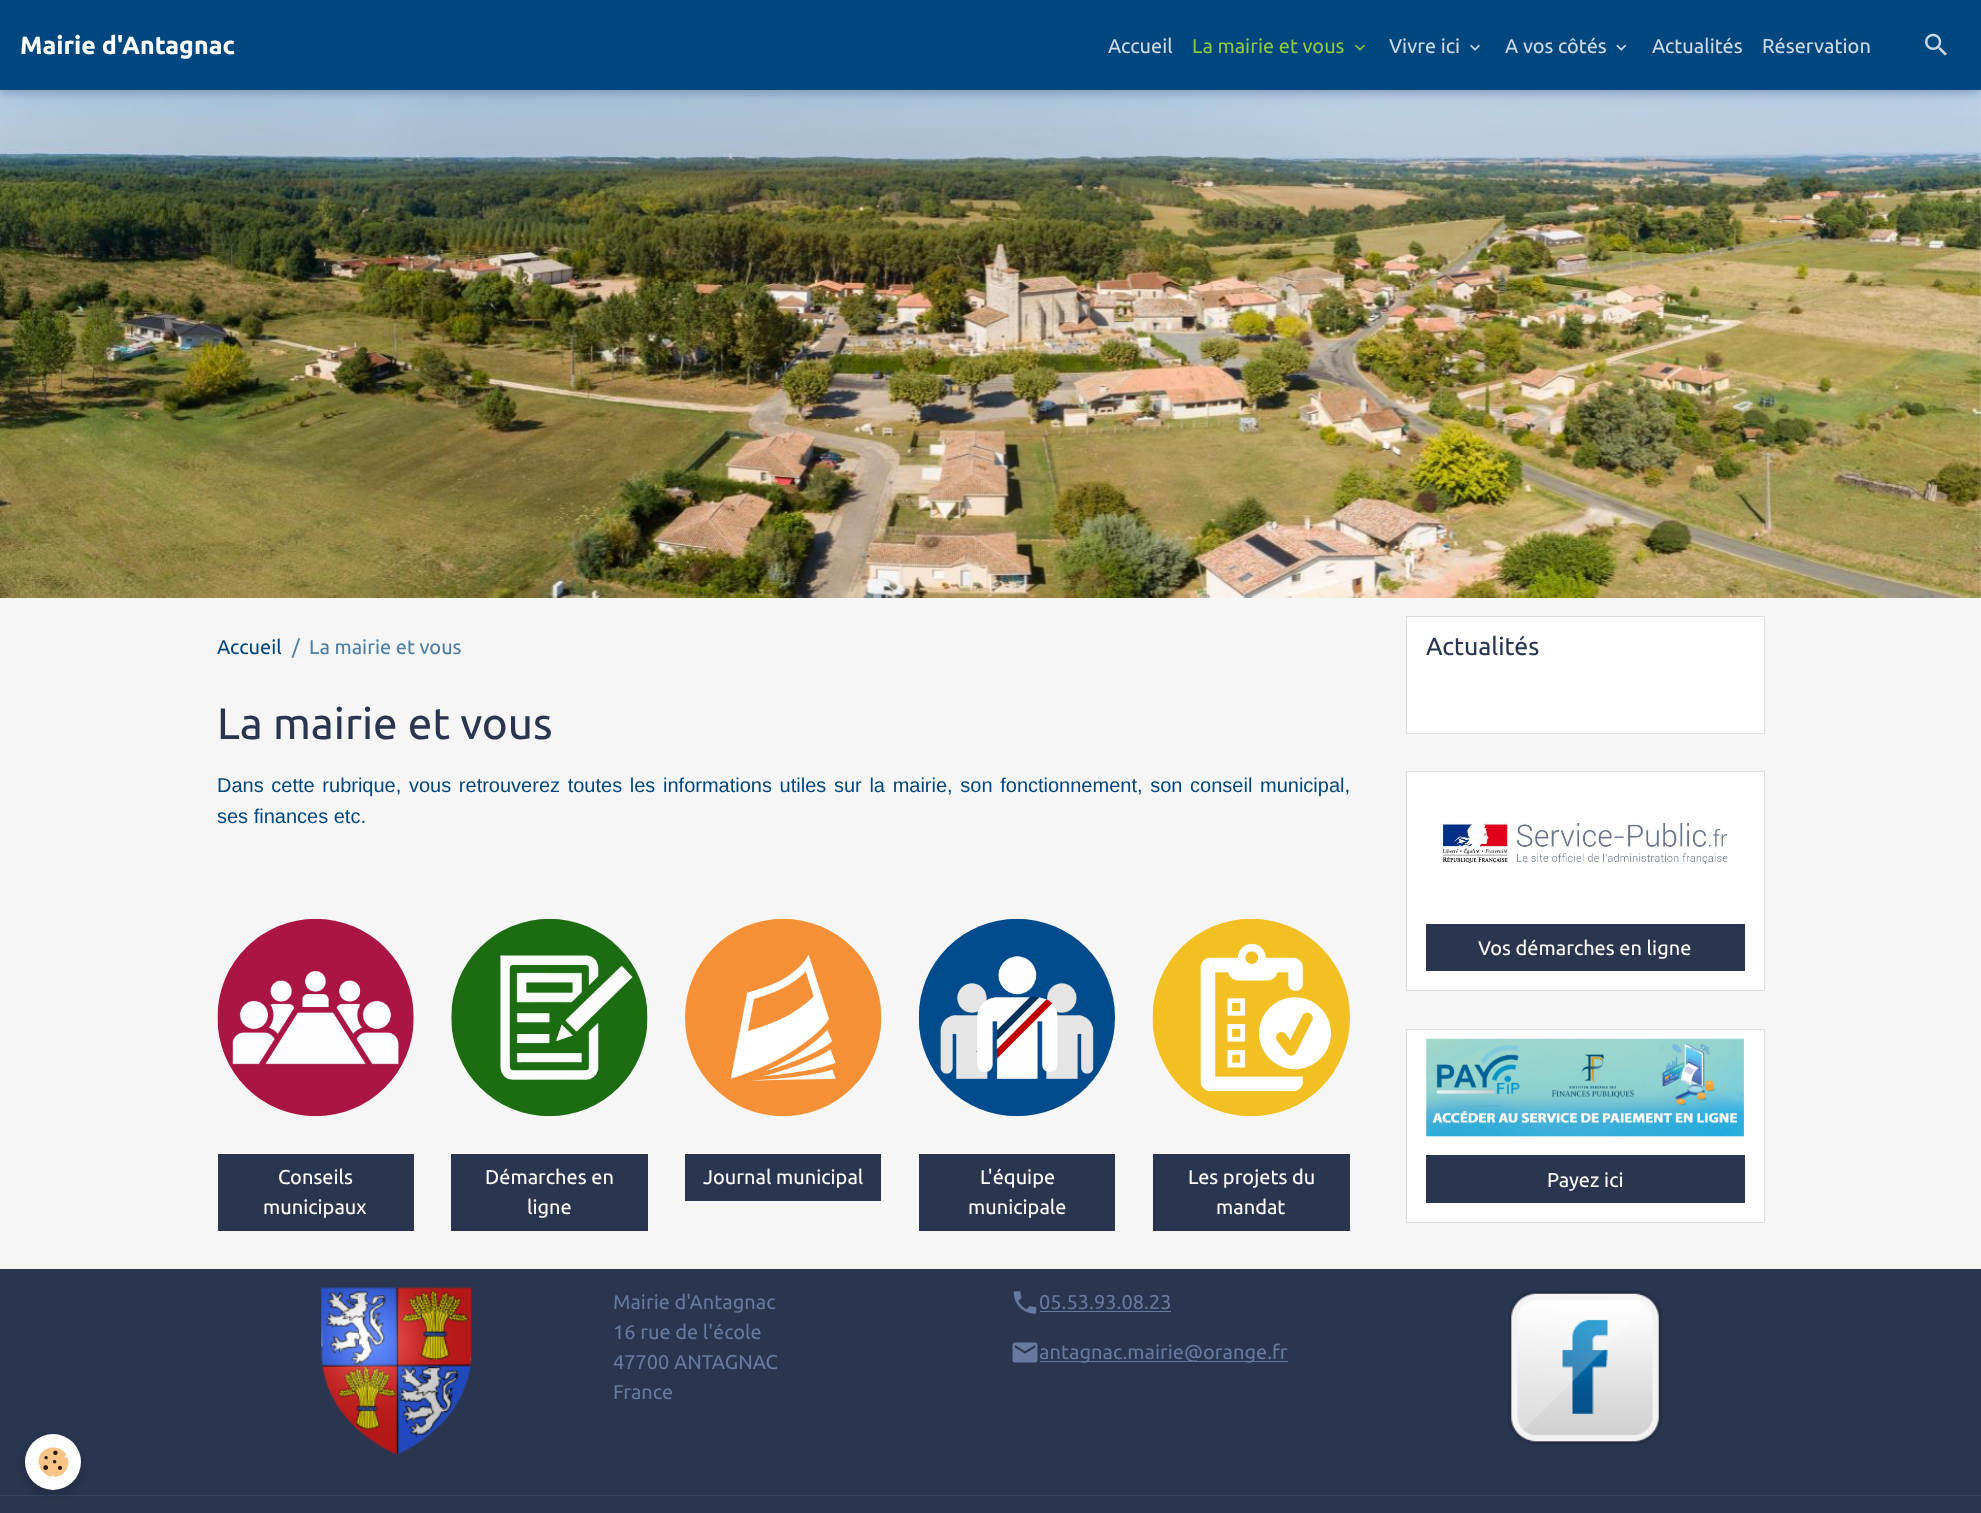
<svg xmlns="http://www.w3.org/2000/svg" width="1981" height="1513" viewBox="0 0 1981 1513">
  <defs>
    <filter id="blur1" x="-50%" y="-200%" width="200%" height="500%"><feGaussianBlur stdDeviation="5"/></filter>
    <filter id="blur2" x="-50%" y="-200%" width="200%" height="500%"><feGaussianBlur stdDeviation="6"/></filter>
  </defs>
  <rect width="100%" height="100%" fill="#f6f6f7"/>
  <image x="0" y="90" width="1981" height="508" href="img5.png"/>
  <rect x="0" y="4" width="1981" height="90" fill="#62759b" fill-opacity="0.5" filter="url(#blur1)"/>
  <rect x="0" y="0" width="1981" height="90" fill="#00467f"/>
  <text x="20" y="54" font-family="Ubuntu" font-size="25" font-weight="bold" fill="#ffffff">Mairie d'Antagnac</text>
  <text x="1108" y="53" font-family="Ubuntu" font-size="20" fill="#ccdae5">Accueil</text>
  <text x="1192" y="53" font-family="Ubuntu" font-size="20" fill="#8dc63f">La mairie et vous</text>
  <image x="1355" y="44" width="10" height="7" href="img1.png"/>
  <text x="1389" y="53" font-family="Ubuntu" font-size="20" fill="#ccdae5">Vivre ici</text>
  <image x="1470" y="44" width="10" height="7" href="img2.png"/>
  <text x="1505" y="53" font-family="Ubuntu" font-size="20" fill="#ccdae5">A vos côtés</text>
  <image x="1616" y="44" width="11" height="7" href="img3.png"/>
  <text x="1652" y="53" font-family="Ubuntu" font-size="20" fill="#ccdae5">Actualités</text>
  <text x="1762" y="53" font-family="Ubuntu" font-size="20" fill="#ccdae5">Réservation</text>
  <image x="1925" y="33" width="22" height="23" href="img4.png"/>
  <text x="217" y="654" font-family="Ubuntu" font-size="20" fill="#00467f">Accueil</text>
  <text x="292" y="654" font-family="Ubuntu" font-size="20" fill="#4d7ea5">/</text>
  <text x="309" y="654" font-family="Ubuntu" font-size="20" fill="#4d7ea5">La mairie et vous</text>
  <text x="217" y="739" font-family="Ubuntu" font-size="44" fill="#2a354f">La mairie et vous</text>
  <text x="217" y="792" word-spacing="2.1" font-family="Liberation Sans" font-size="20" fill="#00467f">Dans cette rubrique, vous retrouverez toutes les informations utiles sur la mairie, son fonctionnement, son conseil municipal,</text>
  <text x="217" y="823" font-family="Liberation Sans" font-size="20" fill="#00467f">ses finances etc.</text>
  <image x="217" y="918" width="197" height="199" href="img6.png"/>
  <image x="451" y="918" width="197" height="199" href="img7.png"/>
  <image x="685" y="918" width="197" height="199" href="img8.png"/>
  <image x="918" y="918" width="197" height="199" href="img9.png"/>
  <image x="1152" y="918" width="198" height="199" href="img10.png"/>
  <rect x="218" y="1154" width="196" height="77" fill="#2a354f"/>
  <text x="278" y="1184" font-family="Ubuntu" font-size="20" fill="#ffffff">Conseils</text>
  <text x="263" y="1214" font-family="Ubuntu" font-size="20" fill="#ffffff">municipaux</text>
  <rect x="451" y="1154" width="197" height="77" fill="#2a354f"/>
  <text x="485" y="1184" font-family="Ubuntu" font-size="20" fill="#ffffff">Démarches en</text>
  <text x="527" y="1214" font-family="Ubuntu" font-size="20" fill="#ffffff">ligne</text>
  <rect x="685" y="1154" width="196" height="47" fill="#2a354f"/>
  <text x="703" y="1184" font-family="Ubuntu" font-size="20" fill="#ffffff">Journal municipal</text>
  <rect x="919" y="1154" width="196" height="77" fill="#2a354f"/>
  <text x="980" y="1184" font-family="Ubuntu" font-size="20" fill="#ffffff">L'équipe</text>
  <text x="968" y="1214" font-family="Ubuntu" font-size="20" fill="#ffffff">municipale</text>
  <rect x="1153" y="1154" width="197" height="77" fill="#2a354f"/>
  <text x="1188" y="1184" font-family="Ubuntu" font-size="20" fill="#ffffff">Les projets du</text>
  <text x="1216" y="1214" font-family="Ubuntu" font-size="20" fill="#ffffff">mandat</text>
  <rect x="1406.5" y="616.5" width="358" height="117" fill="#ffffff" stroke="#dbdfe2"/>
  <text x="1426" y="655" font-family="Ubuntu" font-size="25" fill="#2a354f">Actualités</text>
  <rect x="1406.5" y="771.5" width="358" height="219" fill="#ffffff" stroke="#dbdfe2"/>
  <image x="1442" y="822" width="287" height="42" href="img11.png"/>
  <rect x="1426" y="924" width="319" height="47" fill="#2a354f"/>
  <text x="1478" y="955" font-family="Ubuntu" font-size="20" fill="#ffffff">Vos démarches en ligne</text>
  <rect x="1406.5" y="1029.5" width="358" height="193" fill="#ffffff" stroke="#dbdfe2"/>
  <image x="1425" y="1038" width="319" height="99" href="img12.png"/>
  <rect x="1426" y="1155" width="319" height="48" fill="#2a354f"/>
  <text x="1547" y="1187" font-family="Ubuntu" font-size="20" fill="#ffffff">Payez ici</text>
  <rect x="0" y="1269" width="1981" height="244" fill="#2a354f"/>
  <image x="321" y="1287" width="151" height="168" href="img13.png"/>
  <text x="613" y="1309" font-family="Ubuntu" font-size="20" fill="#66799e">Mairie d'Antagnac</text>
  <text x="613" y="1339" font-family="Ubuntu" font-size="20" fill="#66799e">16 rue de l'école</text>
  <text x="613" y="1369" font-family="Ubuntu" font-size="20" fill="#66799e">47700 ANTAGNAC</text>
  <text x="613" y="1399" font-family="Ubuntu" font-size="20" fill="#66799e">France</text>
  <image x="1013" y="1291" width="24" height="23" href="img14.png"/>
  <text x="1039" y="1309" font-family="Ubuntu" font-size="20" fill="#66799e">05.53.93.08.23</text>
  <rect x="1040" y="1311" width="131" height="1" fill="#66799e"/>
  <image x="1012" y="1342" width="26" height="21" href="img15.png"/>
  <rect x="1040" y="1361" width="248" height="1" fill="#66799e"/>
  <text x="1039" y="1359" font-family="Ubuntu" font-size="20" fill="#66799e">antagnac.mairie@orange.fr</text>
  <image x="1508" y="1290" width="154" height="155" href="img16.png"/>
  <rect x="0" y="1495" width="1981" height="1" fill="#36435f"/>
  <rect x="25" y="1438" width="56" height="56" rx="28" fill="#000000" fill-opacity="0.24" filter="url(#blur2)"/>
  <circle cx="53" cy="1462" r="28" fill="#ffffff"/>
  <image x="38" y="1447" width="31" height="30" href="img17.png"/>
</svg>
